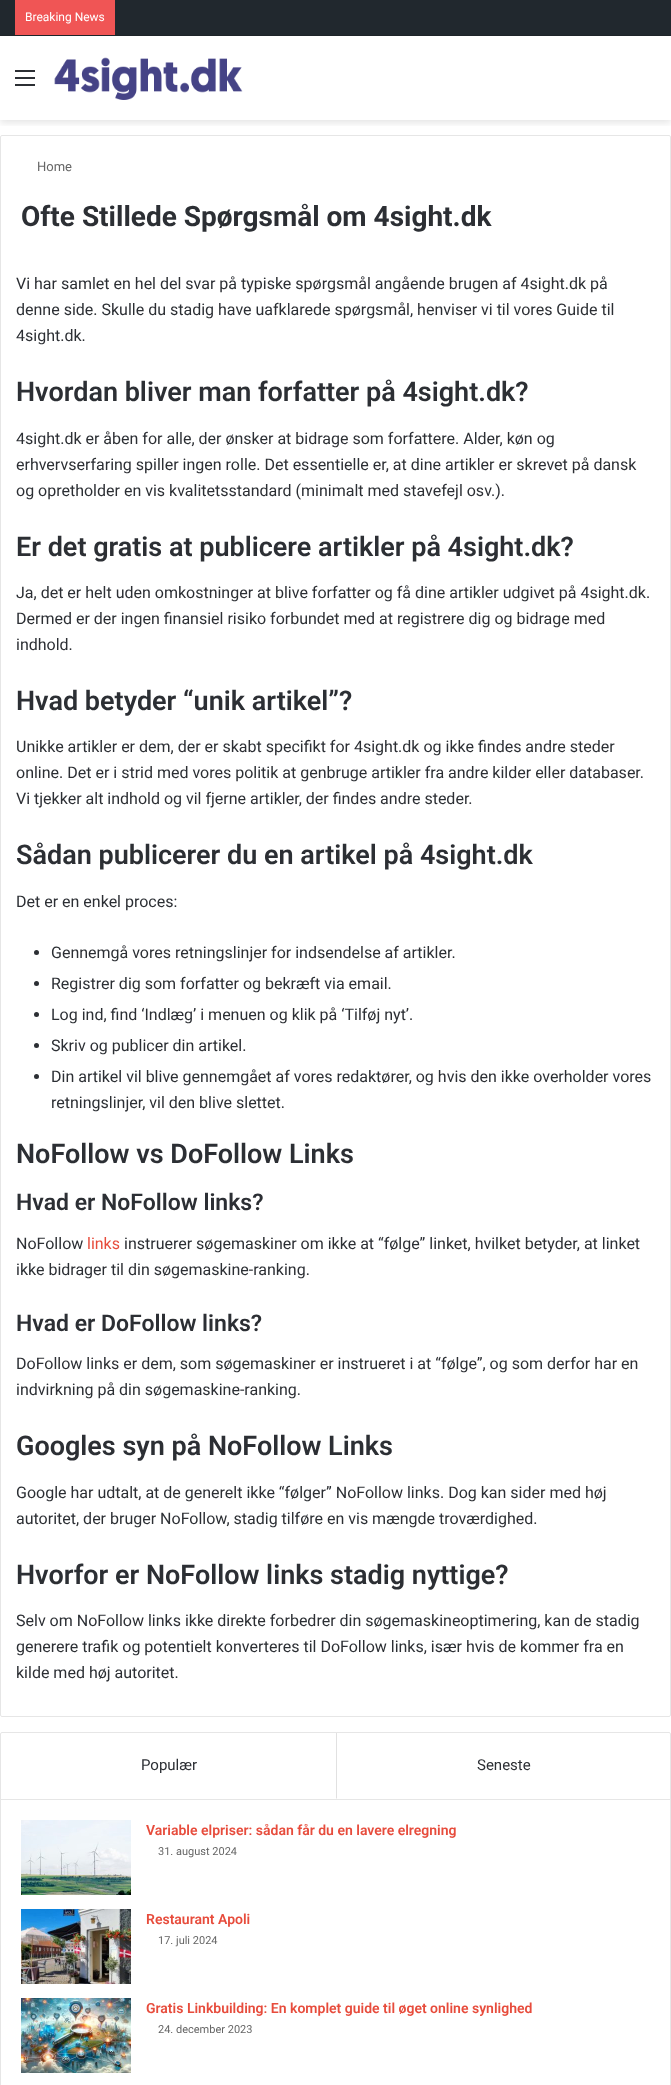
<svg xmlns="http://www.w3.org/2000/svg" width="671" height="2085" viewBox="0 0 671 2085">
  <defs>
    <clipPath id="clip1"><rect x="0" y="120" width="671" height="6"/></clipPath>
    <filter id="blur1" x="-50%" y="-200%" width="200%" height="500%"><feGaussianBlur stdDeviation="3.5"/></filter>
  </defs>
  <rect width="100%" height="100%" fill="#ffffff"/>
  <g clip-path="url(#clip1)">
    <rect x="0" y="39" width="671" height="84" fill="#000000" fill-opacity="0.1" filter="url(#blur1)"/>
  </g>
  <rect x="0" y="0" width="671" height="35" fill="#21282e"/>
  <rect x="0" y="35" width="671" height="1" fill="#1e2429"/>
  <rect x="15" y="0" width="100" height="35" fill="#f05555"/>
  <text x="25" y="21" font-family="Roboto" font-size="12" fill="#ffffff">Breaking News</text>
  <rect x="15" y="77" width="20" height="2" fill="#2c2f34"/>
  <rect x="15" y="70" width="20" height="2" fill="#2c2f34"/>
  <rect x="15" y="84" width="20" height="2" fill="#2c2f34"/>
  <image x="54" y="57" width="189" height="43" href="img1.png"/>
  <rect x="0.5" y="135.5" width="670" height="1581" rx="1.5" fill="none" stroke="#e6e6e6"/>
  <text x="37" y="171" font-family="Roboto" font-size="13" fill="#666666">Home</text>
  <text x="21" y="226" font-family="Roboto" font-size="28" font-weight="bold" fill="#2c2f34">Ofte Stillede Spørgsmål om 4sight.dk</text>
  <text x="16" y="289" font-family="Roboto" font-size="16" fill="#2c2f34">Vi har samlet en hel del svar på typiske spørgsmål angående brugen af 4sight.dk på</text>
  <text x="16" y="315" font-family="Roboto" font-size="16" fill="#2c2f34">denne side. Skulle du stadig have uafklarede spørgsmål, henviser vi til vores Guide til</text>
  <text x="16" y="341" font-family="Roboto" font-size="16" fill="#2c2f34">4sight.dk.</text>
  <text x="16" y="401" font-family="Roboto" font-size="27" font-weight="600" fill="#2c2f34">Hvordan bliver man forfatter på 4sight.dk?</text>
  <text x="16" y="444" font-family="Roboto" font-size="16" fill="#2c2f34">4sight.dk er åben for alle, der ønsker at bidrage som forfattere. Alder, køn og</text>
  <text x="16" y="470" font-family="Roboto" font-size="16" fill="#2c2f34">erhvervserfaring spiller ingen rolle. Det essentielle er, at dine artikler er skrevet på dansk</text>
  <text x="16" y="496" font-family="Roboto" font-size="16" fill="#2c2f34">og opretholder en vis kvalitetsstandard (minimalt med stavefejl osv.).</text>
  <text x="16" y="556" font-family="Roboto" font-size="27" font-weight="600" fill="#2c2f34">Er det gratis at publicere artikler på 4sight.dk?</text>
  <text x="16" y="598" font-family="Roboto" font-size="16" fill="#2c2f34">Ja, det er helt uden omkostninger at blive forfatter og få dine artikler udgivet på 4sight.dk.</text>
  <text x="16" y="624" font-family="Roboto" font-size="16" fill="#2c2f34">Dermed er der ingen finansiel risiko forbundet med at registrere dig og bidrage med</text>
  <text x="16" y="650" font-family="Roboto" font-size="16" fill="#2c2f34">indhold.</text>
  <text x="16" y="710" font-family="Roboto" font-size="27" font-weight="600" fill="#2c2f34">Hvad betyder “unik artikel”?</text>
  <text x="16" y="752" font-family="Roboto" font-size="16" fill="#2c2f34">Unikke artikler er dem, der er skabt specifikt for 4sight.dk og ikke findes andre steder</text>
  <text x="16" y="778" font-family="Roboto" font-size="16" fill="#2c2f34">online. Det er i strid med vores politik at genbruge artikler fra andre kilder eller databaser.</text>
  <text x="16" y="804" font-family="Roboto" font-size="16" fill="#2c2f34">Vi tjekker alt indhold og vil fjerne artikler, der findes andre steder.</text>
  <text x="16" y="864" font-family="Roboto" font-size="27" font-weight="600" fill="#2c2f34">Sådan publicerer du en artikel på 4sight.dk</text>
  <text x="16" y="907" font-family="Roboto" font-size="16" fill="#2c2f34">Det er en enkel proces:</text>
  <circle cx="36.5" cy="952.5" r="2.5" fill="#2c2f34"/>
  <text x="51" y="958" font-family="Roboto" font-size="16" fill="#2c2f34">Gennemgå vores retningslinjer for indsendelse af artikler.</text>
  <circle cx="36.5" cy="983.5" r="2.5" fill="#2c2f34"/>
  <text x="51" y="989" font-family="Roboto" font-size="16" fill="#2c2f34">Registrer dig som forfatter og bekræft via email.</text>
  <circle cx="36.5" cy="1014.5" r="2.5" fill="#2c2f34"/>
  <text x="51" y="1020" font-family="Roboto" font-size="16" fill="#2c2f34">Log ind, find ‘Indlæg’ i menuen og klik på ‘Tilføj nyt’.</text>
  <circle cx="36.5" cy="1045.5" r="2.5" fill="#2c2f34"/>
  <text x="51" y="1051" font-family="Roboto" font-size="16" fill="#2c2f34">Skriv og publicer din artikel.</text>
  <circle cx="36.5" cy="1076.5" r="2.5" fill="#2c2f34"/>
  <text x="51" y="1082" font-family="Roboto" font-size="16" fill="#2c2f34">Din artikel vil blive gennemgået af vores redaktører, og hvis den ikke overholder vores</text>
  <text x="51" y="1108" font-family="Roboto" font-size="16" fill="#2c2f34">retningslinjer, vil den blive slettet.</text>
  <text x="16" y="1163" font-family="Roboto" font-size="27" font-weight="600" fill="#2c2f34">NoFollow vs DoFollow Links</text>
  <text x="16" y="1210" font-family="Roboto" font-size="23" font-weight="600" fill="#2c2f34">Hvad er NoFollow links?</text>
  <text x="16" y="1249" font-family="Roboto" font-size="16" fill="#2c2f34">NoFollow</text>
  <text x="87" y="1249" font-family="Roboto" font-size="16" fill="#e74c3c">links</text>
  <text x="124" y="1249" font-family="Roboto" font-size="16" fill="#2c2f34">instruerer søgemaskiner om ikke at “følge” linket, hvilket betyder, at linket</text>
  <text x="16" y="1275" font-family="Roboto" font-size="16" fill="#2c2f34">ikke bidrager til din søgemaskine-ranking.</text>
  <text x="16" y="1331" font-family="Roboto" font-size="23" font-weight="600" fill="#2c2f34">Hvad er DoFollow links?</text>
  <text x="16" y="1369" font-family="Roboto" font-size="16" fill="#2c2f34">DoFollow links er dem, som søgemaskiner er instrueret i at “følge”, og som derfor har en</text>
  <text x="16" y="1395" font-family="Roboto" font-size="16" fill="#2c2f34">indvirkning på din søgemaskine-ranking.</text>
  <text x="16" y="1455" font-family="Roboto" font-size="27" font-weight="600" fill="#2c2f34">Googles syn på NoFollow Links</text>
  <text x="16" y="1498" font-family="Roboto" font-size="16" fill="#2c2f34">Google har udtalt, at de generelt ikke “følger” NoFollow links. Dog kan sider med høj</text>
  <text x="16" y="1524" font-family="Roboto" font-size="16" fill="#2c2f34">autoritet, der bruger NoFollow, stadig tilføre en vis mængde troværdighed.</text>
  <text x="16" y="1584" font-family="Roboto" font-size="27" font-weight="600" fill="#2c2f34">Hvorfor er NoFollow links stadig nyttige?</text>
  <text x="16" y="1626" font-family="Roboto" font-size="16" fill="#2c2f34">Selv om NoFollow links ikke direkte forbedrer din søgemaskineoptimering, kan de stadig</text>
  <text x="16" y="1652" font-family="Roboto" font-size="16" fill="#2c2f34">generere trafik og potentielt konverteres til DoFollow links, især hvis de kommer fra en</text>
  <text x="16" y="1678" font-family="Roboto" font-size="16" fill="#2c2f34">kilde med høj autoritet.</text>
  <rect x="0.5" y="1732.5" width="670" height="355" rx="1.5" fill="none" stroke="#e6e6e6"/>
  <rect x="1" y="1799" width="669" height="1" fill="#e6e6e6"/>
  <path d="M337 1733V1799L336 1798V1733Z" fill="#e1e1e1"/>
  <text x="141" y="1770" font-family="Roboto" font-size="15" fill="#2c2f34">Populær</text>
  <text x="477" y="1770" font-family="Roboto" font-size="15" fill="#2c2f34">Seneste</text>
  <image x="21" y="1820" width="110" height="75" href="img2.png"/>
  <text x="146" y="1835" font-family="Roboto" font-size="14" font-weight="600" fill="#e74c3c">Variable elpriser: sådan får du en lavere elregning</text>
  <text x="158" y="1855" font-family="Roboto" font-size="11" fill="#666666">31. august 2024</text>
  <image x="21" y="1909" width="110" height="75" href="img3.png"/>
  <text x="146" y="1924" font-family="Roboto" font-size="14" font-weight="600" fill="#e74c3c">Restaurant Apoli</text>
  <text x="158" y="1944" font-family="Roboto" font-size="11" fill="#666666">17. juli 2024</text>
  <image x="21" y="1998" width="110" height="75" href="img4.png"/>
  <text x="146" y="2013" font-family="Roboto" font-size="14" font-weight="600" fill="#e74c3c">Gratis Linkbuilding: En komplet guide til øget online synlighed</text>
  <text x="158" y="2033" font-family="Roboto" font-size="11" fill="#666666">24. december 2023</text>
</svg>
